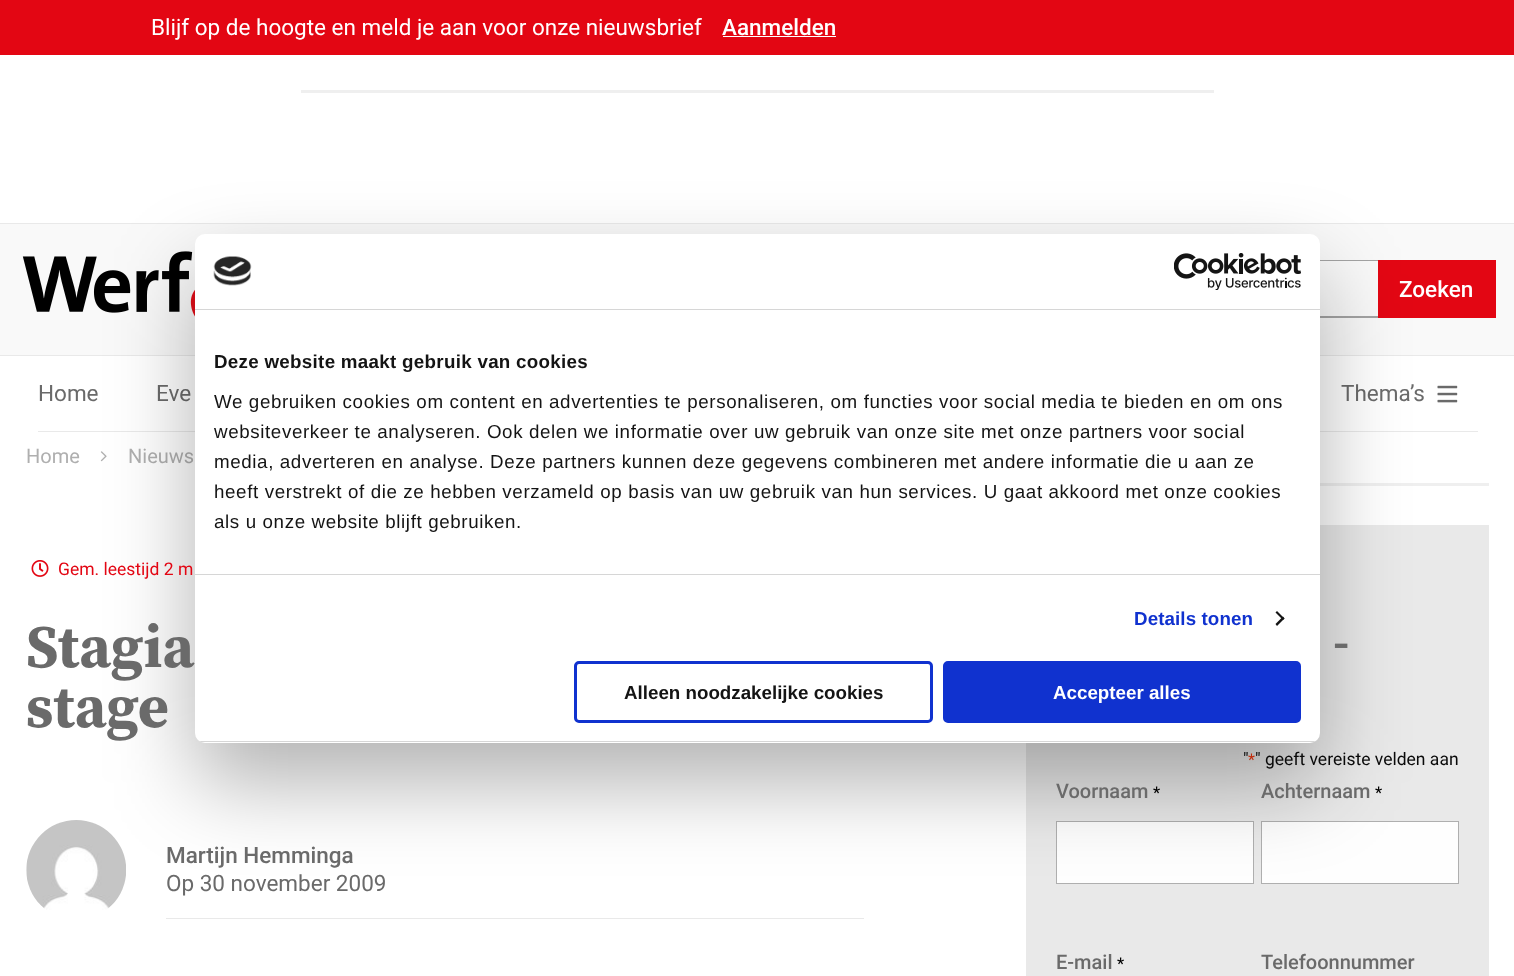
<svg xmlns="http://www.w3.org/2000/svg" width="1514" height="976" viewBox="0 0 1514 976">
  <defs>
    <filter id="blur1" x="-50%" y="-200%" width="200%" height="500%"><feGaussianBlur stdDeviation="42.5"/></filter>
    <clipPath id="clip1"><rect x="195" y="234" width="1125" height="509" rx="10"/></clipPath>
  </defs>
  <rect width="100%" height="100%" fill="#ffffff"/>
  <rect x="0" y="0" width="1514" height="55" fill="#e30613"/>
  <text x="151" y="35" font-family="Roboto" font-size="22.5" fill="#ffffff">Blijf op de hoogte en meld je aan voor onze nieuwsbrief</text>
  <text x="722" y="35" font-family="Roboto" font-size="22.5" font-weight="500" fill="#ffffff">Aanmelden</text>
  <rect x="723" y="36" width="113" height="1" fill="#ffffff"/>
  <rect x="301" y="90" width="913" height="3" fill="#efefef"/>
  <rect x="0" y="224" width="1514" height="131" fill="#f9f9f9"/>
  <rect x="0" y="223" width="1514" height="1" fill="#e9e9e9"/>
  <rect x="0" y="355" width="1514" height="1" fill="#e9e9e9"/>
  <image x="22" y="251" width="173" height="66" href="img1.png"/>
  <path d="M1128 260H1378V261H1129Z" fill="#a3a3a3"/>
  <path d="M1378 318H1128L1129 316H1378Z" fill="#a3a3a3"/>
  <rect x="1378" y="260" width="118" height="58" fill="#e30613"/>
  <text x="1399" y="297" font-family="Roboto" font-size="22.5" font-weight="500" fill="#ffffff">Zoeken</text>
  <rect x="38" y="431" width="1440" height="1" fill="#e9e9e9"/>
  <text x="38" y="401" font-family="Roboto" font-size="22.5" fill="#6a6a6a">Home</text>
  <text x="156" y="401" font-family="Roboto" font-size="22.5" fill="#6a6a6a">Eve</text>
  <text x="1341" y="401" font-family="Roboto" font-size="22.5" fill="#6a6a6a">Thema’s</text>
  <image x="1437" y="385" width="21" height="18" href="img2.png"/>
  <text x="26" y="463" font-family="Roboto" font-size="20" fill="#afafaf">Home</text>
  <image x="100" y="451" width="7" height="11" href="img3.png"/>
  <text x="128" y="463" font-family="Roboto" font-size="20" fill="#afafaf">Nieuws</text>
  <image x="26" y="820" width="100" height="90" href="img7.png"/>
  <rect x="1320" y="483" width="169" height="3" fill="#efefef"/>
  <rect x="1026" y="525" width="463" height="451" fill="#e9e9e9"/>
  <rect x="1056.5" y="821.5" width="197" height="62" fill="#fefefe" stroke="#afafaf"/>
  <rect x="1261.5" y="821.5" width="197" height="62" fill="#fefefe" stroke="#afafaf"/>
  <rect x="195" y="274" width="1125" height="509" rx="10" fill="#000000" fill-opacity="0.3" filter="url(#blur1)"/>
  <rect x="195" y="234" width="1125" height="509" rx="10" fill="#ffffff"/>
  <rect x="195" y="309" width="1125" height="1" fill="#d6d6d6"/>
  <image x="213" y="256" width="39" height="30" href="img4.png"/>
  <image x="1174" y="253" width="127" height="37" href="img5.png"/>
  <rect x="195" y="574" width="1125" height="1" fill="#d6d6d6"/>
  <text x="214" y="368" font-family="Liberation Sans" font-size="18.75" font-weight="bold" letter-spacing="0.3" fill="#141414">Deze website maakt gebruik van cookies</text>
  <text x="214" y="408" font-family="Liberation Sans" font-size="18.75" letter-spacing="0.62" fill="#141414">We gebruiken cookies om content en advertenties te personaliseren, om functies voor social media te bieden en om ons</text>
  <text x="214" y="438" font-family="Liberation Sans" font-size="18.75" letter-spacing="0.62" fill="#141414">websiteverkeer te analyseren. Ook delen we informatie over uw gebruik van onze site met onze partners voor social</text>
  <text x="214" y="468" font-family="Liberation Sans" font-size="18.75" letter-spacing="0.62" fill="#141414">media, adverteren en analyse. Deze partners kunnen deze gegevens combineren met andere informatie die u aan ze</text>
  <text x="214" y="498" font-family="Liberation Sans" font-size="18.75" letter-spacing="0.62" fill="#141414">heeft verstrekt of die ze hebben verzameld op basis van uw gebruik van hun services. U gaat akkoord met onze cookies</text>
  <text x="214" y="528" font-family="Liberation Sans" font-size="18.75" letter-spacing="0.62" fill="#141414">als u onze website blijft gebruiken.</text>
  <text x="1134" y="625" font-family="Liberation Sans" font-size="18.75" font-weight="bold" letter-spacing="0.1" fill="#1032cf">Details tonen</text>
  <path d="M1277 611L1284.5 618.5L1283 620L1275.5 612.5Z" fill="#141414"/>
  <path d="M1283 616.5L1284.5 618.5L1277 626L1275.5 624Z" fill="#141414"/>
  <g clip-path="url(#clip1)">
    <rect x="195" y="741" width="1125" height="1" fill="#d6d6d6"/>
  </g>
  <rect x="575.5" y="662.5" width="356" height="59" rx="3.5" fill="none" stroke="#1032cf" stroke-width="3"/>
  <text x="624" y="699" font-family="Liberation Sans" font-size="18.75" font-weight="bold" fill="#141414">Alleen noodzakelijke cookies</text>
  <rect x="944.5" y="662.5" width="355" height="59" rx="3.5" fill="#1032cf" stroke="#1032cf" stroke-width="3"/>
  <text x="1053" y="699" font-family="Liberation Sans" font-size="18.75" font-weight="bold" fill="#ffffff">Accepteer alles</text>
  <image x="31" y="560" width="18" height="17" href="img6.png"/>
  <text x="58" y="575" font-family="Roboto" font-size="17.5" fill="#e30613">Gem. leestijd 2 m</text>
  <text x="26" y="667" font-family="Source Serif Pro" font-size="60" font-weight="bold" fill="#6a6a6a">Stagia</text>
  <text x="26" y="727" font-family="Source Serif Pro" font-size="60" font-weight="bold" fill="#6a6a6a">stage</text>
  <text x="166" y="863" font-family="Roboto" font-size="22.5" font-weight="500" fill="#6a6a6a">Martijn Hemminga</text>
  <text x="166" y="891" font-family="Roboto" font-size="22.5" fill="#6a6a6a">Op 30 november 2009</text>
  <rect x="166" y="918" width="698" height="1" fill="#e9e9e9"/>
  <text x="1333" y="658" font-family="Source Serif Pro" font-size="48" font-weight="bold" fill="#6a6a6a">-</text>
  <text x="1243" y="765" font-family="Roboto" font-size="17.5" fill="#0a0a0a">"</text>
  <text x="1248" y="765" font-family="Roboto" font-size="16" fill="#c02b0a">*</text>
  <text x="1255" y="765" font-family="Roboto" font-size="17.5" fill="#0a0a0a">" geeft vereiste velden aan</text>
  <text x="1056" y="798" font-family="Roboto" font-size="20" font-weight="500" fill="#6a6a6a">Voornaam</text>
  <text x="1153" y="798" font-family="Roboto" font-size="16" font-weight="500" fill="#000000">*</text>
  <text x="1261" y="798" font-family="Roboto" font-size="20" font-weight="500" fill="#6a6a6a">Achternaam</text>
  <text x="1375" y="798" font-family="Roboto" font-size="16" font-weight="500" fill="#000000">*</text>
  <text x="1056" y="969" font-family="Roboto" font-size="20" font-weight="500" fill="#6a6a6a">E-mail</text>
  <text x="1117" y="969" font-family="Roboto" font-size="16" font-weight="500" fill="#000000">*</text>
  <text x="1261" y="969" font-family="Roboto" font-size="20" font-weight="500" fill="#6a6a6a">Telefoonnummer</text>
</svg>
